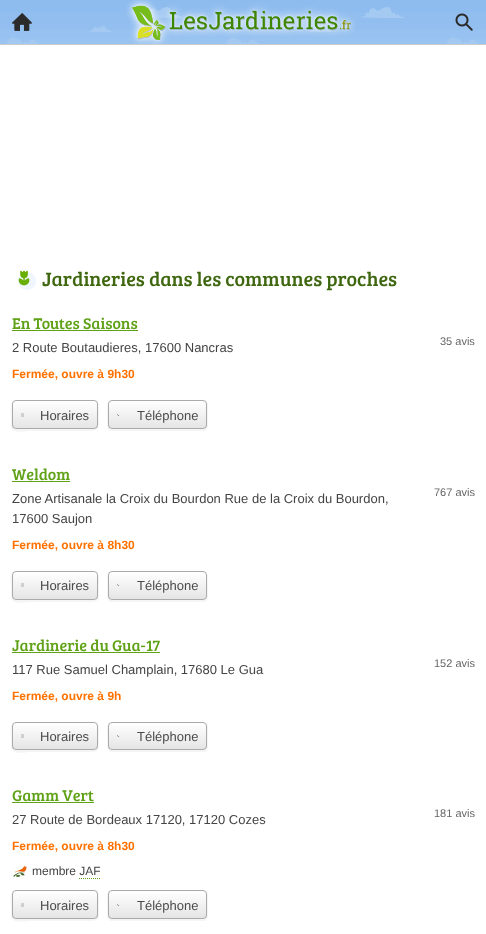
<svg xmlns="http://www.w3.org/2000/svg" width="486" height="934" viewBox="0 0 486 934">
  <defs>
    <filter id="blur1" x="-50%" y="-200%" width="200%" height="500%"><feGaussianBlur stdDeviation="0.5"/></filter>
    <clipPath id="clip1"><rect x="12" y="400" width="86" height="29" rx="4"/></clipPath>
    <linearGradient id="g1" gradientUnits="userSpaceOnUse" x1="55" y1="401" x2="55" y2="428"><stop offset="0" stop-color="#ffffff"/><stop offset="1" stop-color="#e5e5e5"/></linearGradient>
    <linearGradient id="g2" gradientUnits="userSpaceOnUse" x1="55" y1="401" x2="55" y2="428"><stop offset="0" stop-color="#d9d9d9"/><stop offset="1" stop-color="#c5c5c5"/></linearGradient>
    <clipPath id="clip2"><rect x="108" y="400" width="99" height="29" rx="4"/></clipPath>
    <linearGradient id="g3" gradientUnits="userSpaceOnUse" x1="158" y1="401" x2="158" y2="428"><stop offset="0" stop-color="#ffffff"/><stop offset="1" stop-color="#e5e5e5"/></linearGradient>
    <clipPath id="clip3"><rect x="12" y="571" width="86" height="29" rx="4"/></clipPath>
    <linearGradient id="g4" gradientUnits="userSpaceOnUse" x1="55" y1="572" x2="55" y2="599"><stop offset="0" stop-color="#ffffff"/><stop offset="1" stop-color="#e5e5e5"/></linearGradient>
    <linearGradient id="g5" gradientUnits="userSpaceOnUse" x1="55" y1="572" x2="55" y2="599"><stop offset="0" stop-color="#d9d9d9"/><stop offset="1" stop-color="#c5c5c5"/></linearGradient>
    <clipPath id="clip4"><rect x="108" y="571" width="99" height="29" rx="4"/></clipPath>
    <linearGradient id="g6" gradientUnits="userSpaceOnUse" x1="158" y1="572" x2="158" y2="599"><stop offset="0" stop-color="#ffffff"/><stop offset="1" stop-color="#e5e5e5"/></linearGradient>
    <clipPath id="clip5"><rect x="12" y="722" width="86" height="28" rx="4"/></clipPath>
    <linearGradient id="g7" gradientUnits="userSpaceOnUse" x1="55" y1="723" x2="55" y2="749"><stop offset="0" stop-color="#ffffff"/><stop offset="1" stop-color="#e5e5e5"/></linearGradient>
    <linearGradient id="g8" gradientUnits="userSpaceOnUse" x1="55" y1="723" x2="55" y2="749"><stop offset="0" stop-color="#d9d9d9"/><stop offset="1" stop-color="#c5c5c5"/></linearGradient>
    <clipPath id="clip6"><rect x="108" y="722" width="99" height="28" rx="4"/></clipPath>
    <linearGradient id="g9" gradientUnits="userSpaceOnUse" x1="158" y1="723" x2="158" y2="749"><stop offset="0" stop-color="#ffffff"/><stop offset="1" stop-color="#e5e5e5"/></linearGradient>
    <clipPath id="clip7"><rect x="12" y="890" width="86" height="29" rx="4"/></clipPath>
    <linearGradient id="g10" gradientUnits="userSpaceOnUse" x1="55" y1="891" x2="55" y2="918"><stop offset="0" stop-color="#ffffff"/><stop offset="1" stop-color="#e5e5e5"/></linearGradient>
    <linearGradient id="g11" gradientUnits="userSpaceOnUse" x1="55" y1="891" x2="55" y2="918"><stop offset="0" stop-color="#d9d9d9"/><stop offset="1" stop-color="#c5c5c5"/></linearGradient>
    <clipPath id="clip8"><rect x="108" y="890" width="99" height="29" rx="4"/></clipPath>
    <linearGradient id="g12" gradientUnits="userSpaceOnUse" x1="158" y1="891" x2="158" y2="918"><stop offset="0" stop-color="#ffffff"/><stop offset="1" stop-color="#e5e5e5"/></linearGradient>
  </defs>
  <rect width="100%" height="100%" fill="#ffffff"/>
  <rect x="0" y="1" width="486" height="44" fill="#000000" fill-opacity="0.2" filter="url(#blur1)"/>
  <image x="0" y="0" width="486" height="44" href="img1.png"/>
  <image x="126" y="0" width="230" height="45" href="img2.png"/>
  <image x="12" y="13" width="20" height="18" href="img3.png"/>
  <image x="455" y="13" width="18" height="18" href="img4.png"/>
  <image x="18" y="270" width="18" height="20" href="img5.png"/>
  <text x="42" y="286" font-family="Bree Serif" font-size="20" fill="#3f670f">Jardineries dans les communes proches</text>
  <text x="12" y="329" font-family="Bree Serif" font-size="16" fill="#60a217">En Toutes Saisons</text>
  <rect x="12" y="330" width="126" height="1" fill="#60a217"/>
  <rect x="419" y="322" width="1" height="1" fill="#f5f5f5"/>
  <text x="440" y="345" font-family="Liberation Sans" font-size="11" fill="#666666">35 avis</text>
  <text x="12" y="378" font-family="Liberation Sans" font-size="12" font-weight="bold" fill="#ff7200">Fermée, ouvre à 9h30</text>
  <text x="12" y="352" font-family="Liberation Sans" font-size="13" fill="#444444">2 Route Boutaudieres, 17600 Nancras</text>
  <path d="M95 400C97 400 98 402 98 404V425C98 427 96 429 94 429H16C14 429 12 427 12 425V404C12 402 13 400 15 400C9 401 11 411 11 416V428C14 434 27 431 29 431H81C102 431 99 432 99 412C99 408 100 401 95 400Z" fill="#f5f5f5"/>
  <g clip-path="url(#clip1)">
    <rect x="12" y="401" width="86" height="27" fill="url(#g1)"/>
  </g>
  <rect x="21" y="413" width="3" height="4" fill="url(#g2)"/>
  <rect x="12.5" y="400.5" width="85" height="28" rx="3.5" fill="none" stroke="#aaaaaa"/>
  <text x="40" y="420" font-family="Liberation Sans" font-size="13" fill="#4b4b4b">Horaires</text>
  <path d="M204 400C206 400 207 402 207 404V425C207 427 205 429 203 429H112C110 429 108 427 108 425V404C108 402 109 400 111 400C109 400 107 403 107 405V426C107 429 109 431 112 431H203C206 431 208 429 208 426V405C208 403 206 400 204 400Z" fill="#f5f5f5"/>
  <g clip-path="url(#clip2)">
    <rect x="108" y="401" width="99" height="27" fill="url(#g3)"/>
  </g>
  <rect x="108.5" y="400.5" width="98" height="28" rx="3.5" fill="none" stroke="#aaaaaa"/>
  <image x="117" y="414" width="3" height="2" href="img6.png"/>
  <text x="137" y="420" font-family="Liberation Sans" font-size="13" fill="#4b4b4b">Téléphone</text>
  <text x="12" y="480" font-family="Bree Serif" font-size="16" fill="#60a217">Weldom</text>
  <rect x="12" y="481" width="58" height="1" fill="#60a217"/>
  <rect x="419" y="473" width="1" height="1" fill="#f5f5f5"/>
  <text x="434" y="496" font-family="Liberation Sans" font-size="11" fill="#666666">767 avis</text>
  <text x="12" y="549" font-family="Liberation Sans" font-size="12" font-weight="bold" fill="#ff7200">Fermée, ouvre à 8h30</text>
  <text x="12" y="503" font-family="Liberation Sans" font-size="13" fill="#444444">Zone Artisanale la Croix du Bourdon Rue de la Croix du Bourdon,</text>
  <text x="12" y="523" font-family="Liberation Sans" font-size="13" fill="#444444">17600 Saujon</text>
  <path d="M95 571C97 571 98 573 98 575V596C98 598 96 600 94 600H16C14 600 12 598 12 596V575C12 573 13 571 15 571C9 572 11 582 11 586V599C14 605 27 602 29 602H81C102 602 99 603 99 583C99 579 100 572 95 571Z" fill="#f5f5f5"/>
  <g clip-path="url(#clip3)">
    <rect x="12" y="572" width="86" height="27" fill="url(#g4)"/>
  </g>
  <rect x="21" y="583" width="3" height="4" fill="url(#g5)"/>
  <rect x="12.5" y="571.5" width="85" height="28" rx="3.5" fill="none" stroke="#aaaaaa"/>
  <text x="40" y="590" font-family="Liberation Sans" font-size="13" fill="#4b4b4b">Horaires</text>
  <path d="M204 571C206 571 207 573 207 575V596C207 598 205 600 203 600H112C110 600 108 598 108 596V575C108 573 109 571 111 571C109 571 107 574 107 576V597C107 600 109 602 112 602H203C206 602 208 600 208 597V576C208 574 206 571 204 571Z" fill="#f5f5f5"/>
  <g clip-path="url(#clip4)">
    <rect x="108" y="572" width="99" height="27" fill="url(#g6)"/>
  </g>
  <rect x="108.5" y="571.5" width="98" height="28" rx="3.5" fill="none" stroke="#aaaaaa"/>
  <image x="117" y="584" width="3" height="2" href="img7.png"/>
  <text x="137" y="590" font-family="Liberation Sans" font-size="13" fill="#4b4b4b">Téléphone</text>
  <text x="12" y="651" font-family="Bree Serif" font-size="16" fill="#60a217">Jardinerie du Gua-17</text>
  <rect x="12" y="652" width="148" height="1" fill="#60a217"/>
  <rect x="419" y="644" width="1" height="1" fill="#f5f5f5"/>
  <text x="434" y="667" font-family="Liberation Sans" font-size="11" fill="#666666">152 avis</text>
  <text x="12" y="700" font-family="Liberation Sans" font-size="12" font-weight="bold" fill="#ff7200">Fermée, ouvre à 9h</text>
  <text x="12" y="674" font-family="Liberation Sans" font-size="13" fill="#444444">117 Rue Samuel Champlain, 17680 Le Gua</text>
  <path d="M95 722C97 722 98 724 98 726V746C98 748 96 750 94 750H16C14 750 12 748 12 746V726C12 724 13 722 15 722C9 723 11 733 11 737V749C14 755 27 752 29 752H81C100 752 99 754 99 737C99 733 101 723 95 722Z" fill="#f5f5f5"/>
  <g clip-path="url(#clip5)">
    <rect x="12" y="723" width="86" height="26" fill="url(#g7)"/>
  </g>
  <rect x="21" y="734" width="3" height="4" fill="url(#g8)"/>
  <rect x="12.5" y="722.5" width="85" height="27" rx="3.5" fill="none" stroke="#aaaaaa"/>
  <text x="40" y="741" font-family="Liberation Sans" font-size="13" fill="#4b4b4b">Horaires</text>
  <path d="M204 722C206 722 207 724 207 726V746C207 748 205 750 203 750H112C110 750 108 748 108 746V726C108 724 109 722 111 722C109 722 107 725 107 727V747C107 750 109 752 112 752H203C206 752 208 750 208 747V727C208 725 206 722 204 722Z" fill="#f5f5f5"/>
  <g clip-path="url(#clip6)">
    <rect x="108" y="723" width="99" height="26" fill="url(#g9)"/>
  </g>
  <rect x="108.5" y="722.5" width="98" height="27" rx="3.5" fill="none" stroke="#aaaaaa"/>
  <image x="117" y="735" width="3" height="2" href="img7.png"/>
  <text x="137" y="741" font-family="Liberation Sans" font-size="13" fill="#4b4b4b">Téléphone</text>
  <text x="12" y="801" font-family="Bree Serif" font-size="16" fill="#60a217">Gamm Vert</text>
  <rect x="12" y="802" width="82" height="1" fill="#60a217"/>
  <rect x="419" y="794" width="1" height="1" fill="#f5f5f5"/>
  <text x="434" y="817" font-family="Liberation Sans" font-size="11" fill="#666666">181 avis</text>
  <text x="12" y="850" font-family="Liberation Sans" font-size="12" font-weight="bold" fill="#ff7200">Fermée, ouvre à 8h30</text>
  <text x="12" y="824" font-family="Liberation Sans" font-size="13" fill="#444444">27 Route de Bordeaux 17120, 17120 Cozes</text>
  <image x="13" y="866" width="14" height="11" href="img8.png"/>
  <text x="32" y="875" font-family="Liberation Sans" font-size="12" fill="#444444">membre JAF</text>
  <path d="M79 878.5H101" fill="none" stroke="#60a217" stroke-dasharray="1 1"/>
  <path d="M95 890C97 890 98 892 98 894V915C98 917 96 919 94 919H16C14 919 12 917 12 915V894C12 892 13 890 15 890C9 891 11 901 11 906V918C14 924 27 921 29 921H81C102 921 99 922 99 902C99 898 100 891 95 890Z" fill="#f5f5f5"/>
  <g clip-path="url(#clip7)">
    <rect x="12" y="891" width="86" height="27" fill="url(#g10)"/>
  </g>
  <rect x="21" y="903" width="3" height="4" fill="url(#g11)"/>
  <rect x="12.5" y="890.5" width="85" height="28" rx="3.5" fill="none" stroke="#aaaaaa"/>
  <text x="40" y="910" font-family="Liberation Sans" font-size="13" fill="#4b4b4b">Horaires</text>
  <path d="M204 890C206 890 207 892 207 894V915C207 917 205 919 203 919H112C110 919 108 917 108 915V894C108 892 109 890 111 890C109 890 107 893 107 895V916C107 919 109 921 112 921H203C206 921 208 919 208 916V895C208 893 206 890 204 890Z" fill="#f5f5f5"/>
  <g clip-path="url(#clip8)">
    <rect x="108" y="891" width="99" height="27" fill="url(#g12)"/>
  </g>
  <rect x="108.5" y="890.5" width="98" height="28" rx="3.5" fill="none" stroke="#aaaaaa"/>
  <image x="117" y="904" width="3" height="2" href="img6.png"/>
  <text x="137" y="910" font-family="Liberation Sans" font-size="13" fill="#4b4b4b">Téléphone</text>
</svg>
